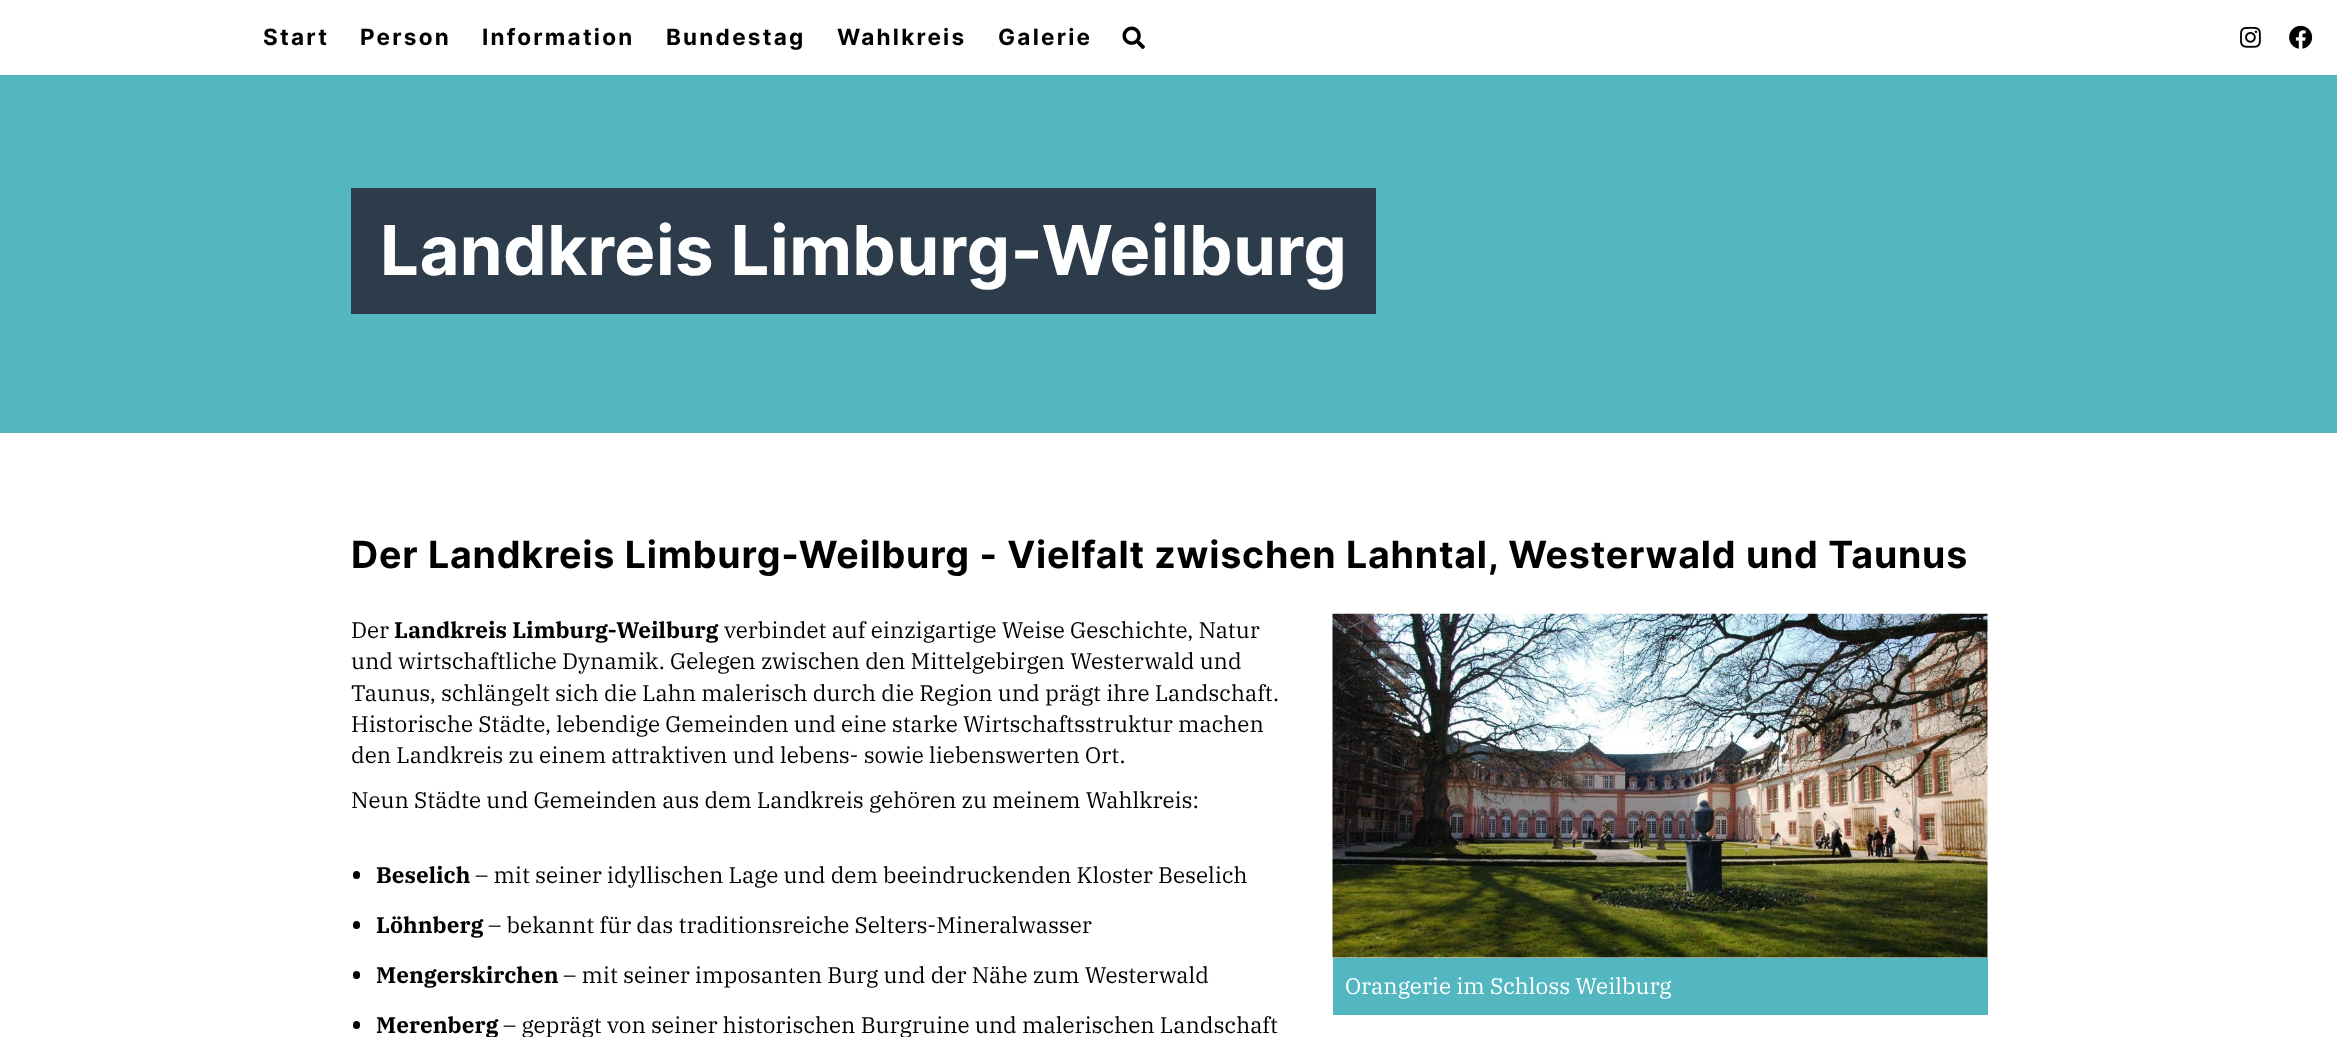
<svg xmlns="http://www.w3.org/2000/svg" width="2337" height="1037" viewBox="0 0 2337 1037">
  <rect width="100%" height="100%" fill="#ffffff"/>
  <text x="263" y="45" font-family="Inter" font-size="22.5" font-weight="bold" letter-spacing="2.25" fill="#000000">Start</text>
  <text x="360" y="45" font-family="Inter" font-size="22.5" font-weight="bold" letter-spacing="2.25" fill="#000000">Person</text>
  <text x="482" y="45" font-family="Inter" font-size="22.5" font-weight="bold" letter-spacing="2.25" fill="#000000">Information</text>
  <text x="666" y="45" font-family="Inter" font-size="22.5" font-weight="bold" letter-spacing="2.25" fill="#000000">Bundestag</text>
  <text x="837" y="45" font-family="Inter" font-size="22.5" font-weight="bold" letter-spacing="2.25" fill="#000000">Wahlkreis</text>
  <text x="998" y="45" font-family="Inter" font-size="22.5" font-weight="bold" letter-spacing="2.25" fill="#000000">Galerie</text>
  <image x="1122" y="26" width="23" height="23" href="img1.png"/>
  <image x="2240" y="26" width="21" height="22" href="img2.png"/>
  <image x="2289" y="25" width="24" height="24" href="img3.png"/>
  <rect x="0" y="75" width="2337" height="358" fill="#52b7c1"/>
  <rect x="351" y="188" width="1025" height="126" fill="#2d3c4b"/>
  <text x="380" y="275" font-family="Inter" font-size="68.75" font-weight="bold" letter-spacing="0.45" fill="#ffffff">Landkreis Limburg-Weilburg</text>
  <text x="351" y="568" font-family="Inter" font-size="37.5" font-weight="bold" letter-spacing="0.8" fill="#000000">Der Landkreis Limburg-Weilburg - Vielfalt zwischen Lahntal, Westerwald und Taunus</text>
  <text x="351" y="638" font-family="IBM Plex Serif" font-size="22.5" fill="#000000">Der</text>
  <text x="394" y="638" font-family="IBM Plex Serif" font-size="22.5" font-weight="bold" fill="#000000">Landkreis Limburg-Weilburg</text>
  <text x="724" y="638" font-family="IBM Plex Serif" font-size="22.5" fill="#000000">verbindet auf einzigartige Weise Geschichte, Natur</text>
  <text x="351" y="669" font-family="IBM Plex Serif" font-size="22.5" fill="#000000">und wirtschaftliche Dynamik. Gelegen zwischen den Mittelgebirgen Westerwald und</text>
  <text x="351" y="701" font-family="IBM Plex Serif" font-size="22.5" fill="#000000">Taunus, schlängelt sich die Lahn malerisch durch die Region und prägt ihre Landschaft.</text>
  <text x="351" y="732" font-family="IBM Plex Serif" font-size="22.5" fill="#000000">Historische Städte, lebendige Gemeinden und eine starke Wirtschaftsstruktur machen</text>
  <text x="351" y="763" font-family="IBM Plex Serif" font-size="22.5" fill="#000000">den Landkreis zu einem attraktiven und lebens- sowie liebenswerten Ort.</text>
  <text x="351" y="808" font-family="IBM Plex Serif" font-size="22.5" fill="#000000">Neun Städte und Gemeinden aus dem Landkreis gehören zu meinem Wahlkreis:</text>
  <rect x="353" y="871" width="7" height="8" rx="3.5" fill="#000000"/>
  <text x="376" y="883" font-family="IBM Plex Serif" font-size="22.5" font-weight="bold" fill="#000000">Beselich</text>
  <text x="475" y="883" font-family="IBM Plex Serif" font-size="22.5" fill="#000000">– mit seiner idyllischen Lage und dem beeindruckenden Kloster Beselich</text>
  <rect x="353" y="921" width="7" height="8" rx="3.5" fill="#000000"/>
  <text x="376" y="933" font-family="IBM Plex Serif" font-size="22.5" font-weight="bold" fill="#000000">Löhnberg</text>
  <text x="488" y="933" font-family="IBM Plex Serif" font-size="22.5" fill="#000000">– bekannt für das traditionsreiche Selters-Mineralwasser</text>
  <rect x="353" y="971" width="7" height="8" rx="3.5" fill="#000000"/>
  <text x="376" y="983" font-family="IBM Plex Serif" font-size="22.5" font-weight="bold" fill="#000000">Mengerskirchen</text>
  <text x="563" y="983" font-family="IBM Plex Serif" font-size="22.5" fill="#000000">– mit seiner imposanten Burg und der Nähe zum Westerwald</text>
  <rect x="353" y="1021" width="7" height="8" rx="3.5" fill="#000000"/>
  <text x="376" y="1033" font-family="IBM Plex Serif" font-size="22.5" font-weight="bold" fill="#000000">Merenberg</text>
  <text x="503" y="1033" font-family="IBM Plex Serif" font-size="22.5" fill="#000000">– geprägt von seiner historischen Burgruine und malerischen Landschaft</text>
  <image x="1332" y="613" width="656" height="345" href="img4.png"/>
  <rect x="1333" y="958" width="655" height="57" fill="#52b7c1"/>
  <text x="1345" y="994" font-family="IBM Plex Serif" font-size="22.5" fill="#ffffff">Orangerie im Schloss Weilburg</text>
</svg>
